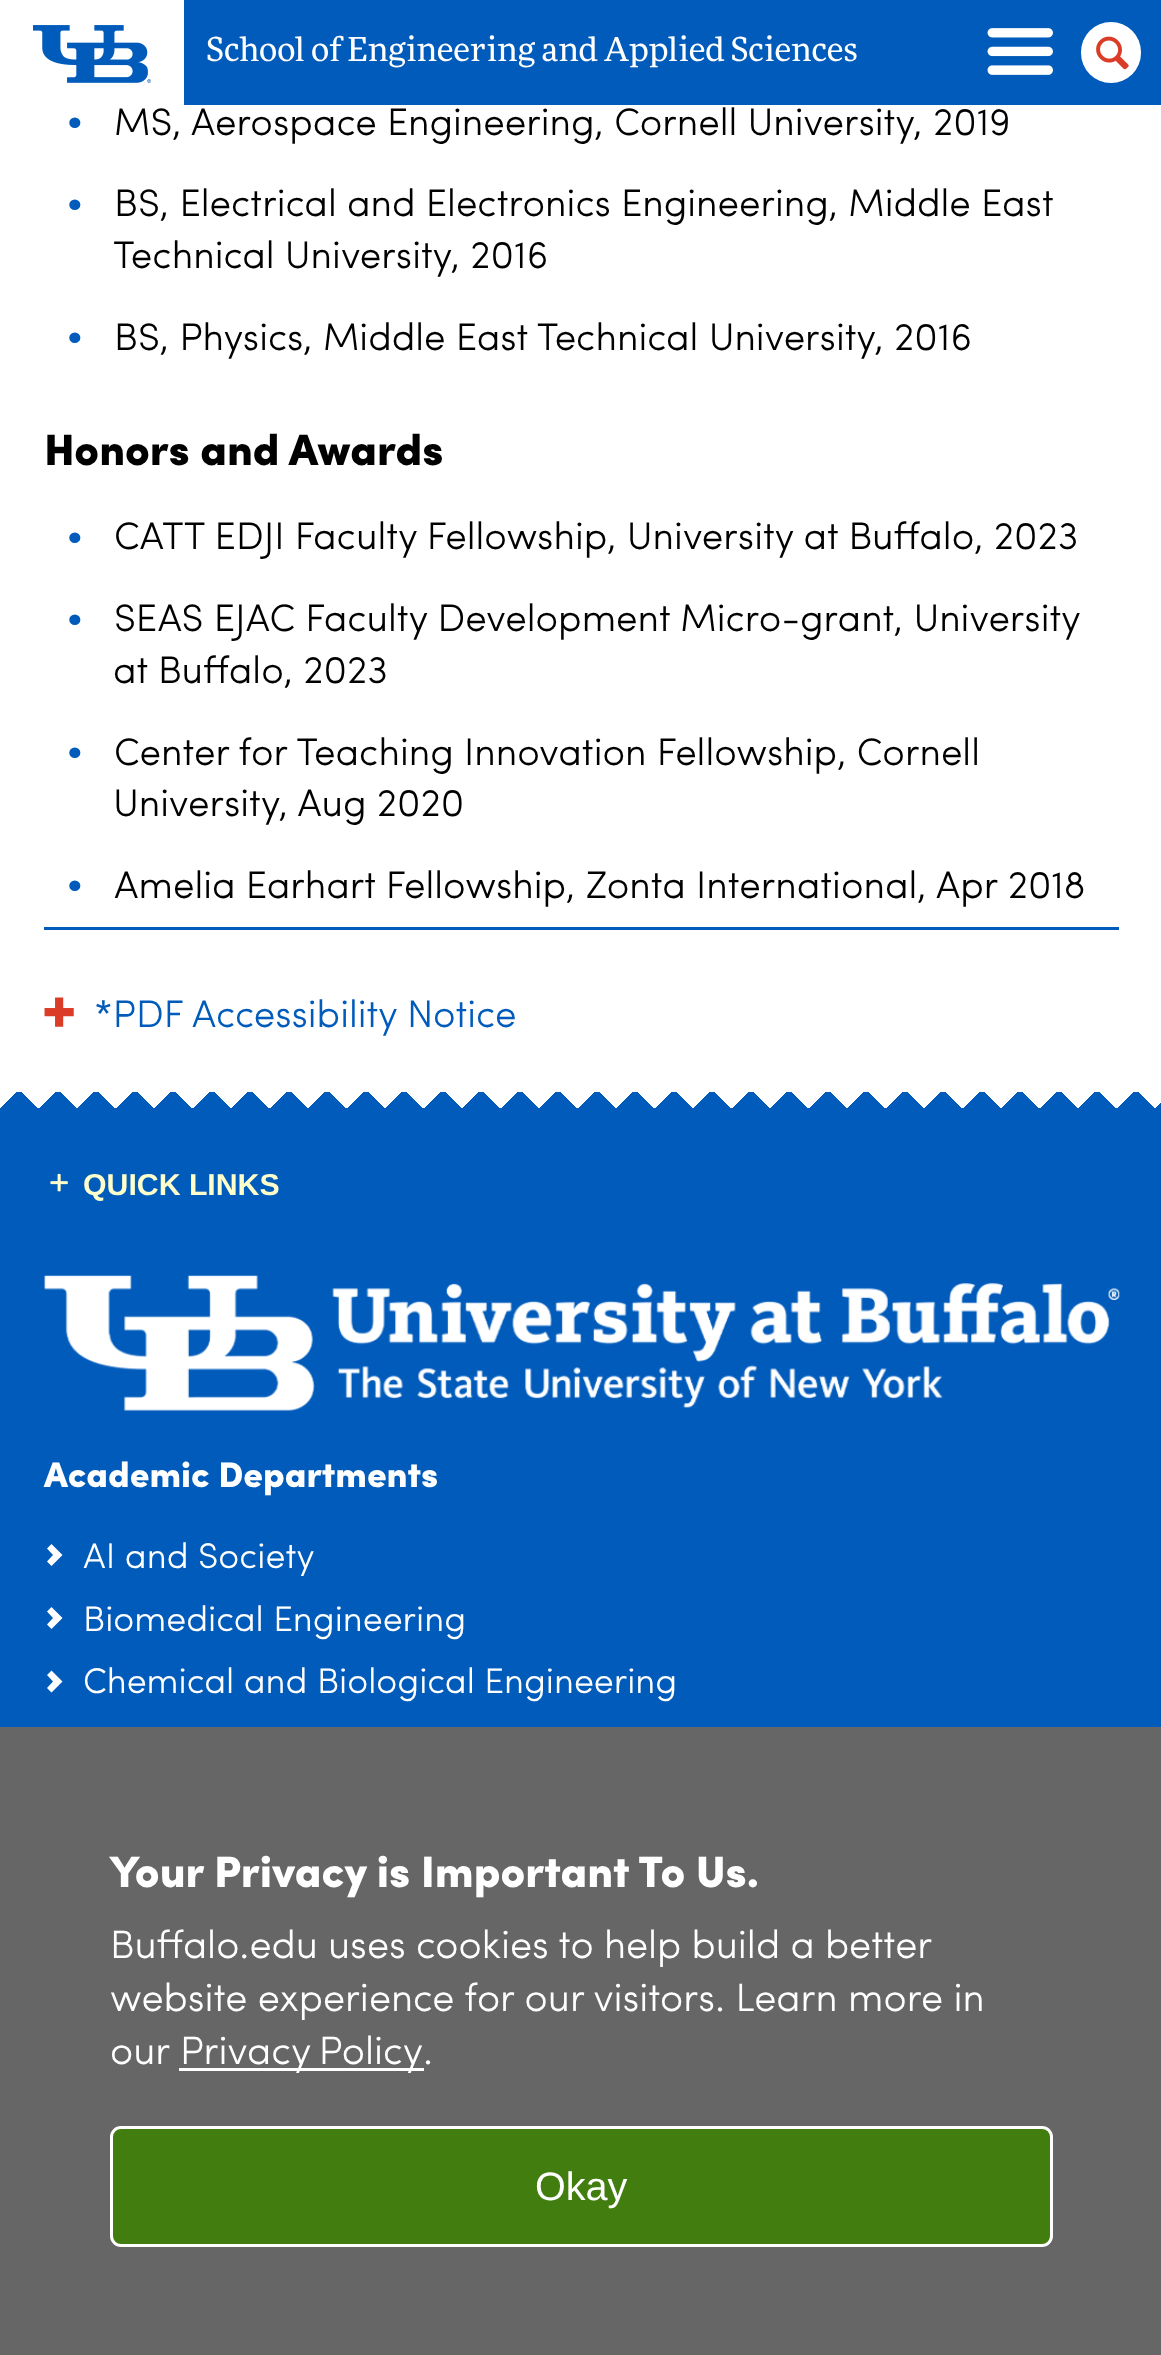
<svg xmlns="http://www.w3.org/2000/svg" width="1161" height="2355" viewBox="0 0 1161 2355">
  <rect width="100%" height="100%" fill="#005bbb"/>
  <rect x="0" y="105" width="1161" height="987" fill="#ffffff"/>
  <rect x="0" y="0" width="184" height="105" fill="#ffffff"/>
  <image x="33" y="25" width="118" height="58" href="img1.png"/>
  <text x="206" y="61" font-family="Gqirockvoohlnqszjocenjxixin" font-size="33" fill="#ffffff">School of Engineering and Applied Sciences</text>
  <image x="987" y="28" width="66" height="47" href="img2.png"/>
  <rect x="1081" y="22" width="60" height="61" rx="30" fill="#ffffff"/>
  <image x="1096" y="36" width="33" height="34" href="img3.png"/>
  <rect x="44" y="927" width="1075" height="3" fill="#005bbb"/>
  <text x="66" y="132" font-family="'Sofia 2'" font-size="38.5" fill="#005bbb">•</text>
  <text x="114" y="135" font-family="'Sofia 2'" font-size="38.5" fill="#000000">MS, Aerospace Engineering, Cornell University, 2019</text>
  <text x="66" y="214" font-family="'Sofia 2'" font-size="38.5" fill="#005bbb">•</text>
  <text x="114" y="216" font-family="'Sofia 2'" font-size="38.5" fill="#000000">BS, Electrical and Electronics Engineering, Middle East</text>
  <text x="113" y="268" font-family="'Sofia 2'" font-size="38.5" fill="#000000">Technical University, 2016</text>
  <text x="66" y="347" font-family="'Sofia 2'" font-size="38.5" fill="#005bbb">•</text>
  <text x="114" y="350" font-family="'Sofia 2'" font-size="38.5" fill="#000000">BS, Physics, Middle East Technical University, 2016</text>
  <text x="44" y="465" font-family="Sofia" font-size="44" fill="#000000">Honors and Awards</text>
  <text x="66" y="547" font-family="'Sofia 2'" font-size="38.5" fill="#005bbb">•</text>
  <text x="114" y="549" font-family="'Sofia 2'" font-size="38.5" fill="#000000">CATT EDJI Faculty Fellowship, University at Buffalo, 2023</text>
  <text x="66" y="629" font-family="'Sofia 2'" font-size="38.5" fill="#005bbb">•</text>
  <text x="114" y="631" font-family="'Sofia 2'" font-size="38.5" fill="#000000">SEAS EJAC Faculty Development Micro-grant, University</text>
  <text x="113" y="683" font-family="'Sofia 2'" font-size="38.5" fill="#000000">at Buffalo, 2023</text>
  <text x="66" y="762" font-family="'Sofia 2'" font-size="38.5" fill="#005bbb">•</text>
  <text x="114" y="765" font-family="'Sofia 2'" font-size="38.5" fill="#000000">Center for Teaching Innovation Fellowship, Cornell</text>
  <text x="113" y="816" font-family="'Sofia 2'" font-size="38.5" fill="#000000">University, Aug 2020</text>
  <text x="66" y="895" font-family="'Sofia 2'" font-size="38.5" fill="#005bbb">•</text>
  <text x="114" y="898" font-family="'Sofia 2'" font-size="38.5" fill="#000000">Amelia Earhart Fellowship, Zonta International, Apr 2018</text>
  <image x="44" y="997" width="30" height="30" href="img4.png"/>
  <text x="94" y="1027" font-family="'Sofia 2'" font-size="38.5" fill="#005bbb">*PDF Accessibility Notice</text>
  <image x="0" y="1092" width="1161" height="16" href="img5.png"/>
  <image x="22" y="1092" width="1133" height="16" href="img6.png"/>
  <image x="50" y="1173" width="18" height="19" href="img7.png"/>
  <text x="83" y="1195" font-family="Liberation Sans" font-size="30.25" font-weight="bold" fill="#ffffcc">QUICK LINKS</text>
  <image x="44" y="1275" width="1076" height="136" href="img8.png"/>
  <text x="44" y="1487" font-family="Sofia" font-size="35.75" fill="#ffffff">Academic Departments</text>
  <path d="M62.5 1555L51.5 1566L47 1561.5L53 1555L47 1548.5L51.5 1544Z" fill="#ffffff"/>
  <text x="83" y="1568" font-family="'Sofia 2'" font-size="35.75" fill="#ffffff">AI and Society</text>
  <path d="M62.5 1618L51.5 1629L47 1624.5L53 1618L47 1611.5L51.5 1607Z" fill="#ffffff"/>
  <text x="83" y="1631" font-family="'Sofia 2'" font-size="35.75" fill="#ffffff">Biomedical Engineering</text>
  <path d="M62.5 1681.5L51.5 1692.5L47 1688L53 1681.5L47 1675L51.5 1670.5Z" fill="#ffffff"/>
  <text x="83" y="1693" font-family="'Sofia 2'" font-size="35.75" fill="#ffffff">Chemical and Biological Engineering</text>
  <rect x="0" y="1727" width="1161" height="628" fill="#666666"/>
  <text x="110" y="1887" font-family="Sofia" font-size="44" fill="#ffffff">Your Privacy is Important To Us.</text>
  <text x="110" y="1958" word-spacing="-0.25" font-family="'Sofia 2'" font-size="39.6" fill="#ffffff">Buffalo.edu uses cookies to help build a better</text>
  <text x="110" y="2011" font-family="'Sofia 2'" font-size="39.6" fill="#ffffff">website experience for our visitors. Learn more in</text>
  <text x="110" y="2064" font-family="'Sofia 2'" font-size="39.6" fill="#ffffff">our</text>
  <rect x="179" y="2068" width="245" height="3" fill="#ffffff"/>
  <text x="180" y="2064" word-spacing="-2" font-family="'Sofia 2'" font-size="39.6" fill="#ffffff">Privacy Policy</text>
  <text x="423" y="2064" font-family="'Sofia 2'" font-size="39.6" fill="#ffffff">.</text>
  <rect x="111.5" y="2127.5" width="940" height="118" rx="9.5" fill="#427d10" stroke="#ffffff" stroke-width="3"/>
  <text x="535" y="2200" font-family="Liberation Sans" font-size="39.6" fill="#ffffff">Okay</text>
</svg>
